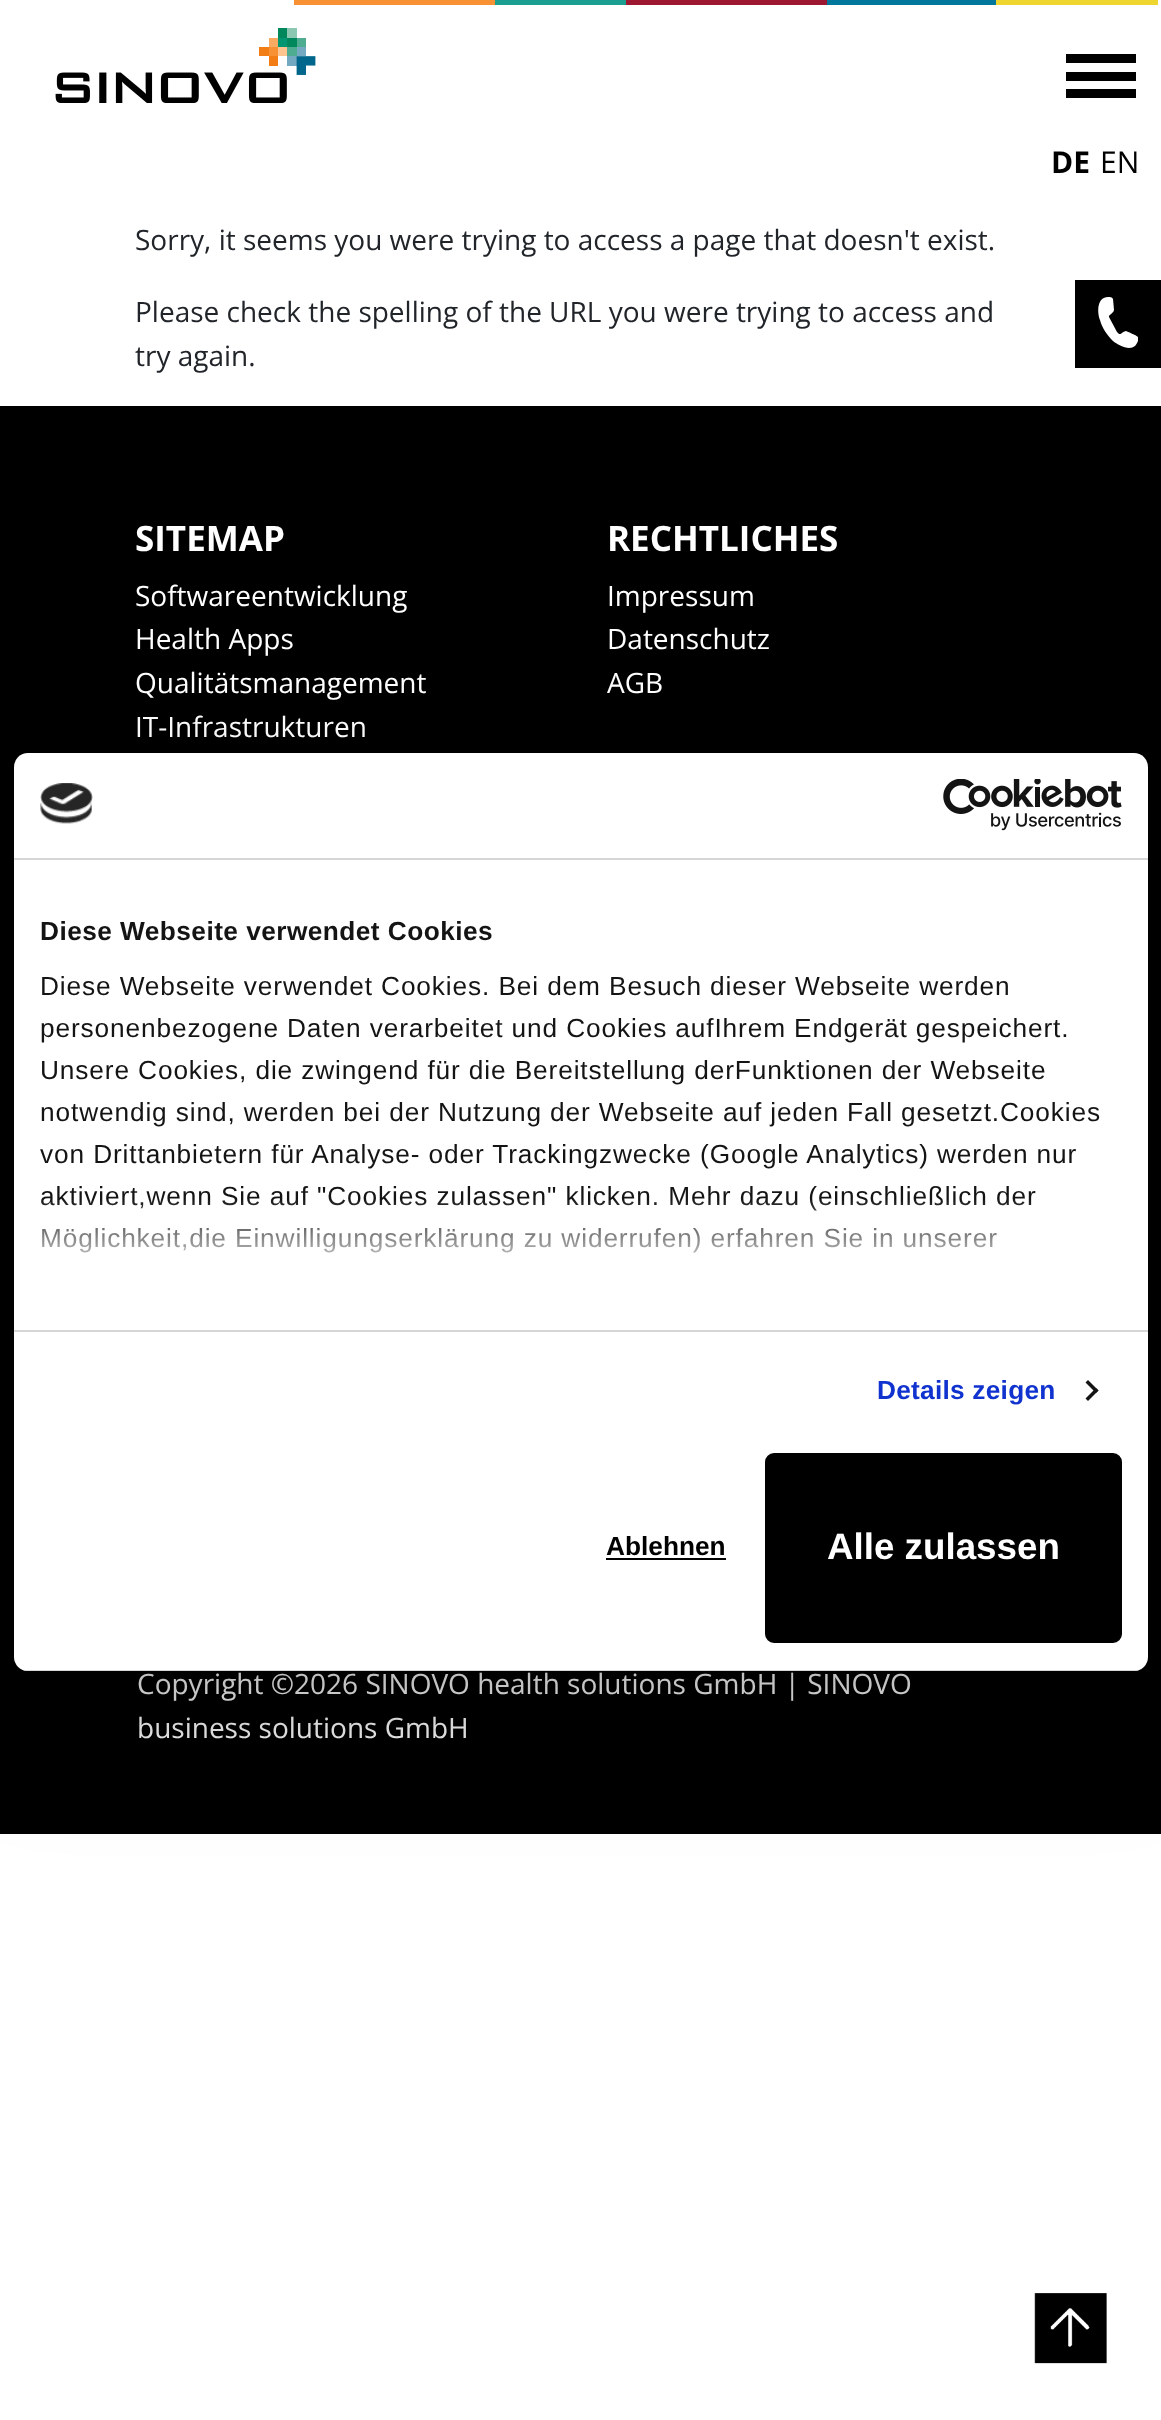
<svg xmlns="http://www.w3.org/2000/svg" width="1161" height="2420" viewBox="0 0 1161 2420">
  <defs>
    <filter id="blur1" x="-50%" y="-200%" width="200%" height="500%"><feGaussianBlur stdDeviation="59.5"/></filter>
    <linearGradient id="g1" gradientUnits="userSpaceOnUse" x1="570" y1="1329" x2="570" y2="1198"><stop offset="0" stop-color="#ffffff"/><stop offset="0.5" stop-color="#ffffff" stop-opacity="0.8"/><stop offset="1" stop-color="#ffffff" stop-opacity="0"/></linearGradient>
    <clipPath id="clip1"><rect x="14" y="753" width="1134" height="918" rx="14"/></clipPath>
  </defs>
  <rect width="100%" height="100%" fill="#ffffff"/>
  <rect x="294" y="0" width="201" height="5" fill="#f79134"/>
  <rect x="827" y="0" width="169" height="5" fill="#00779b"/>
  <rect x="626" y="0" width="201" height="5" fill="#9b1830"/>
  <rect x="495" y="0" width="131" height="5" fill="#199e8f"/>
  <rect x="996" y="0" width="162" height="5" fill="#efd52f"/>
  <image x="55" y="28" width="261" height="75" href="img1.png"/>
  <rect x="1066" y="54" width="70" height="9" fill="#000000"/>
  <rect x="1066" y="72" width="70" height="9" fill="#000000"/>
  <rect x="1066" y="89" width="70" height="9" fill="#000000"/>
  <text x="1051" y="173" font-family="Open Sans" font-size="30" font-weight="bold" fill="#000000">DE</text>
  <text x="1100" y="173" font-family="Open Sans" font-size="30" fill="#000000">EN</text>
  <text x="135" y="250" font-family="Open Sans" font-size="28" fill="#212529">Sorry, it seems you were trying to access a page that doesn't exist.</text>
  <text x="135" y="322" font-family="Open Sans" font-size="28" fill="#212529">Please check the spelling of the URL you were trying to access and</text>
  <text x="135" y="366" font-family="Open Sans" font-size="28" fill="#212529">try again.</text>
  <image x="1034" y="2293" width="73" height="71" href="img2.png"/>
  <rect x="1075" y="280" width="86" height="88" fill="#000000"/>
  <path d="M1114 310C1114 313 1108 315 1109 317L1117 332L1119 334C1120 334 1121 334 1122 333C1123 332 1125 331 1126 331C1128 332 1136 335 1138 337V341C1137 343 1136 345 1135 346C1129 351 1118 345 1113 341C1107 335 1102 328 1100 320C1097 312 1097 297 1108 297C1110 297 1112 297 1113 299Z" fill="#ffffff"/>
  <rect x="0" y="406" width="1161" height="1428" fill="#000000"/>
  <text x="135" y="551" font-family="Open Sans" font-size="35" font-weight="bold" fill="#ffffff">SITEMAP</text>
  <text x="135" y="606" font-family="Open Sans" font-size="28" fill="#ffffff">Softwareentwicklung</text>
  <text x="135" y="649" font-family="Open Sans" font-size="28" fill="#ffffff">Health Apps</text>
  <text x="135" y="693" font-family="Open Sans" font-size="28" fill="#ffffff">Qualitätsmanagement</text>
  <text x="135" y="737" font-family="Open Sans" font-size="28" fill="#ffffff">IT-Infrastrukturen</text>
  <text x="607" y="551" font-family="Open Sans" font-size="35" font-weight="bold" fill="#ffffff">RECHTLICHES</text>
  <text x="607" y="606" font-family="Open Sans" font-size="28" fill="#ffffff">Impressum</text>
  <text x="607" y="649" font-family="Open Sans" font-size="28" fill="#ffffff">Datenschutz</text>
  <text x="607" y="693" font-family="Open Sans" font-size="28" fill="#ffffff">AGB</text>
  <text x="137" y="1694" font-family="Open Sans" font-size="28" fill="#ffffff">Copyright ©2026 SINOVO health solutions GmbH | SINOVO</text>
  <text x="137" y="1738" font-family="Open Sans" font-size="28" fill="#ffffff">business solutions GmbH</text>
  <rect x="14" y="809" width="1134" height="918" rx="14" fill="#000000" fill-opacity="0.3" filter="url(#blur1)"/>
  <rect x="14" y="753" width="1134" height="918" rx="14" fill="#ffffff"/>
  <rect x="14" y="858" width="1134" height="2" fill="#d6d6d6"/>
  <image x="40" y="783" width="53" height="41" href="img3.png"/>
  <image x="943" y="779" width="179" height="52" href="img4.png"/>
  <rect x="14" y="1330" width="1134" height="2" fill="#d6d6d6"/>
  <text x="40" y="940" font-family="Liberation Sans" font-size="26.25" font-weight="bold" letter-spacing="0.45" fill="#141414">Diese Webseite verwendet Cookies</text>
  <text x="40" y="995" font-family="Liberation Sans" font-size="26.25" letter-spacing="0.88" fill="#141414">Diese Webseite verwendet Cookies. Bei dem Besuch dieser Webseite werden</text>
  <text x="40" y="1037" font-family="Liberation Sans" font-size="26.25" letter-spacing="0.88" fill="#141414">personenbezogene Daten verarbeitet und Cookies aufIhrem Endgerät gespeichert.</text>
  <text x="40" y="1079" font-family="Liberation Sans" font-size="26.25" letter-spacing="0.88" fill="#141414">Unsere Cookies, die zwingend für die Bereitstellung derFunktionen der Webseite</text>
  <text x="40" y="1121" font-family="Liberation Sans" font-size="26.25" letter-spacing="0.88" fill="#141414">notwendig sind, werden bei der Nutzung der Webseite auf jeden Fall gesetzt.Cookies</text>
  <text x="40" y="1163" font-family="Liberation Sans" font-size="26.25" letter-spacing="0.88" fill="#141414">von Drittanbietern für Analyse- oder Trackingzwecke (Google Analytics) werden nur</text>
  <text x="40" y="1205" font-family="Liberation Sans" font-size="26.25" letter-spacing="0.88" fill="#141414">aktiviert,wenn Sie auf "Cookies zulassen" klicken. Mehr dazu (einschließlich der</text>
  <text x="40" y="1247" font-family="Liberation Sans" font-size="26.25" letter-spacing="0.88" fill="#141414">Möglichkeit,die Einwilligungserklärung zu widerrufen) erfahren Sie in unserer</text>
  <rect x="41" y="1200" width="990" height="53" fill="url(#g1)"/>
  <text x="877" y="1399" font-family="Liberation Sans" font-size="26.25" font-weight="bold" letter-spacing="0.25" fill="#1032cf">Details zeigen</text>
  <path d="M1088 1380L1098.5 1390.5L1096 1393L1085.5 1382.5Z" fill="#141414"/>
  <path d="M1096 1388L1098.5 1390.5L1088 1401L1085.5 1398.5Z" fill="#141414"/>
  <g clip-path="url(#clip1)">
    <rect x="23" y="1670" width="1116" height="1" fill="#d6d6d6"/>
  </g>
  <text x="606" y="1555" font-family="Liberation Sans" font-size="26.25" font-weight="bold" fill="#000000">Ablehnen</text>
  <rect x="606" y="1558" width="120" height="2" fill="#000000"/>
  <rect x="767" y="1455" width="353" height="186" rx="7" fill="#000000" stroke="#000000" stroke-width="4"/>
  <text x="827" y="1559" font-family="Liberation Sans" font-size="36.75" font-weight="bold" fill="#ffffff">Alle zulassen</text>
</svg>
